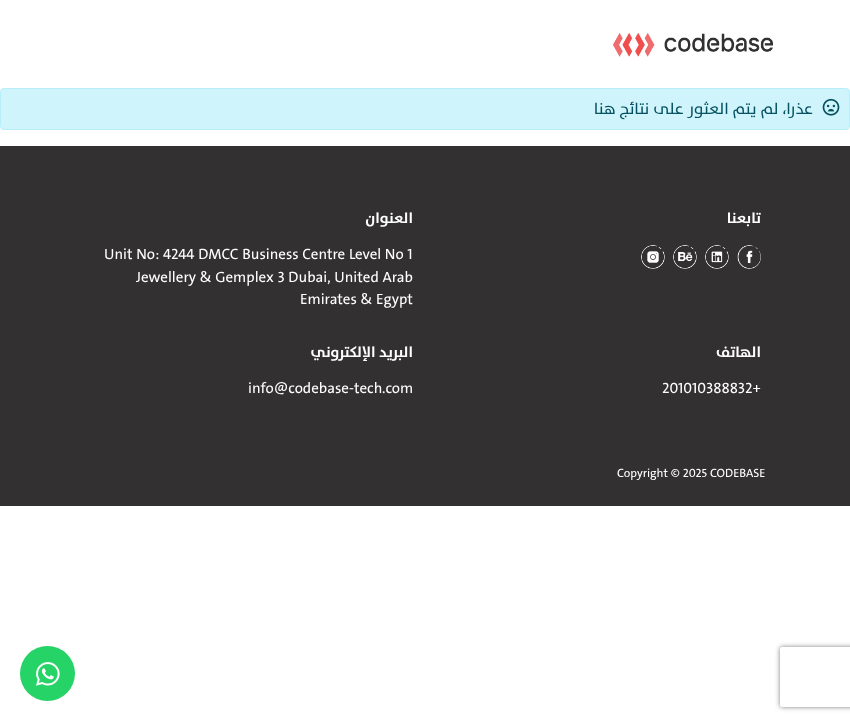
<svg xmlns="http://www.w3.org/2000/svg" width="850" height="721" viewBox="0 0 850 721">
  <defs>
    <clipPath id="clip1"><path d="M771 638H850V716H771ZM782 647H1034C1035 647 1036 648 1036 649V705C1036 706 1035 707 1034 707H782C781 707 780 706 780 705V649C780 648 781 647 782 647Z" clip-rule="evenodd"/></clipPath>
    <filter id="blur1" x="-50%" y="-200%" width="200%" height="500%"><feGaussianBlur stdDeviation="2.5"/></filter>
  </defs>
  <rect width="100%" height="100%" fill="#ffffff"/>
  <image x="613" y="33" width="160" height="24" href="img1.png"/>
  <rect x="0.5" y="88.5" width="849" height="41" rx="3.5" fill="#cff4fc" stroke="#b6effb"/>
  <text x="813" y="114" font-family="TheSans" font-size="16" direction="rtl" fill="#055160">عذرا، لم يتم العثور على نتائج هنا</text>
  <image x="822" y="98" width="18" height="18" href="img2.png"/>
  <rect x="0" y="146" width="850" height="360" fill="#323031"/>
  <text x="413" y="223" font-family="TheSans" font-size="15" font-weight="bold" direction="rtl" fill="#ffffff">العنوان</text>
  <text x="104" y="259" font-family="TheSans" font-size="15" fill="#ffffff">Unit No: 4244 DMCC Business Centre Level No 1</text>
  <text x="136" y="282" font-family="TheSans" font-size="15" fill="#ffffff">Jewellery &amp; Gemplex 3 Dubai, United Arab</text>
  <text x="300" y="304" font-family="TheSans" font-size="15" fill="#ffffff">Emirates &amp; Egypt</text>
  <text x="761" y="223" font-family="TheSans" font-size="15" font-weight="bold" direction="rtl" fill="#ffffff">تابعنا</text>
  <image x="641" y="245" width="24" height="24" href="img3.png"/>
  <image x="673" y="245" width="24" height="24" href="img4.png"/>
  <image x="705" y="245" width="24" height="24" href="img5.png"/>
  <image x="737" y="245" width="24" height="24" href="img6.png"/>
  <text x="413" y="357" font-family="TheSans" font-size="15" font-weight="bold" direction="rtl" fill="#ffffff">البريد الإلكتروني</text>
  <text x="248" y="393" font-family="TheSans" font-size="15" fill="#ffffff">info@codebase-tech.com</text>
  <text x="761" y="357" font-family="TheSans" font-size="15" font-weight="bold" direction="rtl" fill="#ffffff">الهاتف</text>
  <text x="662" y="393" font-family="TheSans" font-size="15" fill="#ffffff">201010388832+</text>
  <text x="617" y="477" font-family="TheSans" font-size="12" fill="#ffffff">Copyright © 2025 CODEBASE</text>
  <circle cx="47.5" cy="673.5" r="27.5" fill="#25d366"/>
  <image x="36" y="662" width="24" height="24" href="img7.png"/>
  <g clip-path="url(#clip1)">
    <rect x="780" y="647" width="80" height="60" rx="2" fill="#808080" filter="url(#blur1)"/>
  </g>
</svg>
